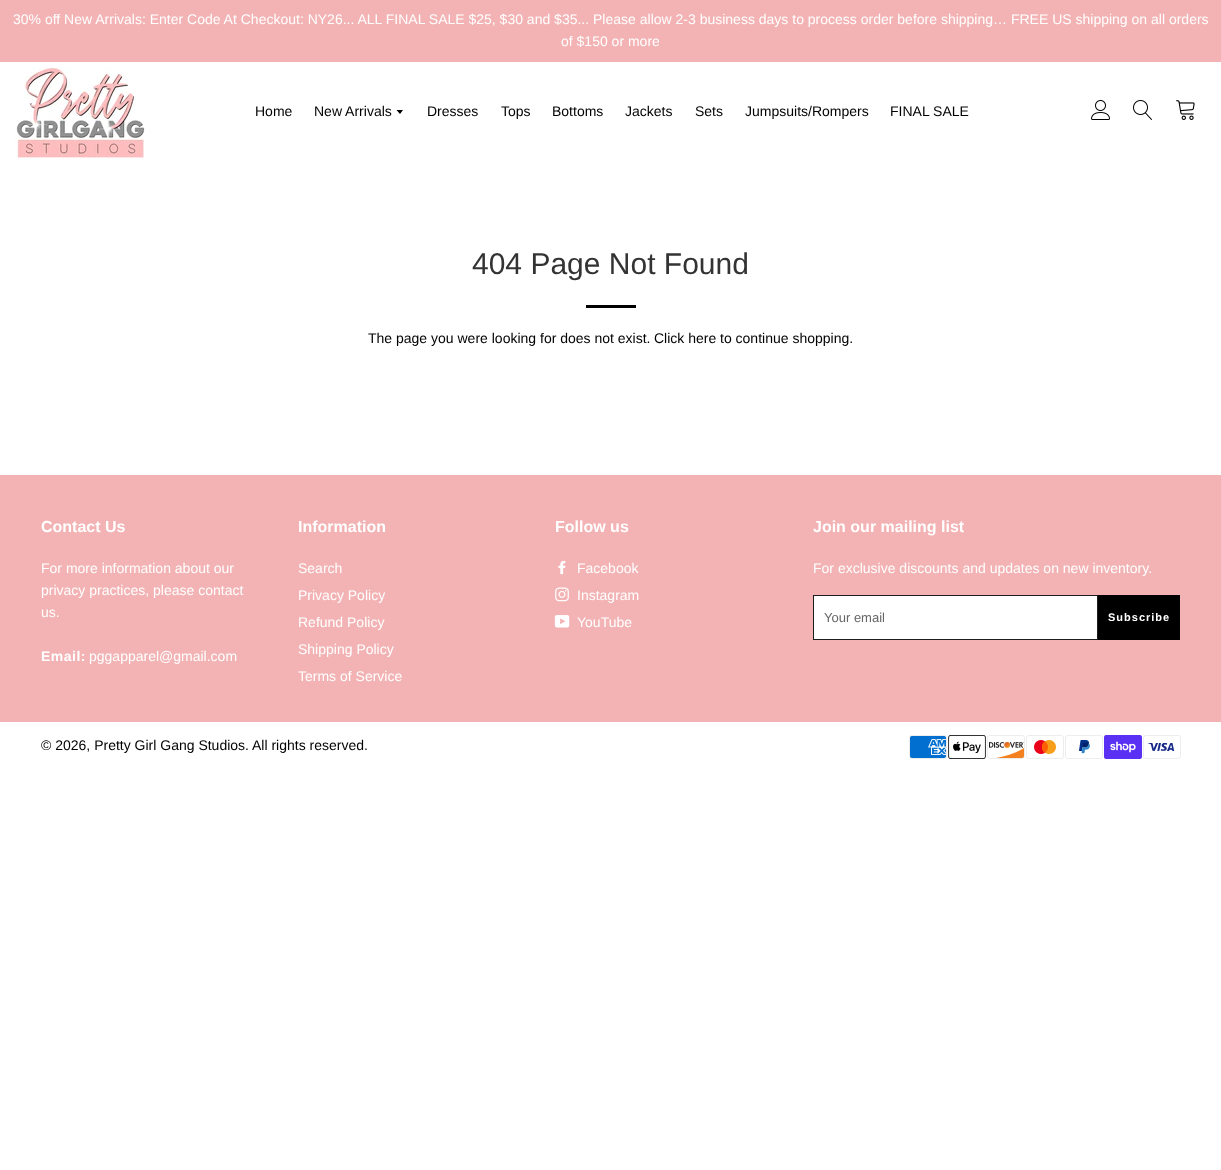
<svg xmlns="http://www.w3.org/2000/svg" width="1221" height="1170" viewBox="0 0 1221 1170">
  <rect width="100%" height="100%" fill="#ffffff"/>
  <rect x="0" y="0" width="1221" height="62" fill="#f3b3b4"/>
  <text x="13" y="24" font-family="Liberation Sans" font-size="14" fill="#ffffff">30% off New Arrivals: Enter Code At Checkout: NY26... ALL FINAL SALE $25, $30 and $35... Please allow 2-3 business days to process order before shipping… FREE US shipping on all orders</text>
  <text x="561" y="46" font-family="Liberation Sans" font-size="14" fill="#ffffff">of $150 or more</text>
  <image x="15" y="67" width="130" height="91" href="img1.png"/>
  <text x="255" y="116" font-family="Liberation Sans" font-size="14" fill="#000000">Home</text>
  <text x="314" y="116" font-family="Liberation Sans" font-size="14" fill="#000000">New Arrivals</text>
  <path d="M396.5 110L400 114L403 110Z" fill="#000000"/>
  <text x="427" y="116" font-family="Liberation Sans" font-size="14" fill="#000000">Dresses</text>
  <text x="501" y="116" font-family="Liberation Sans" font-size="14" fill="#000000">Tops</text>
  <text x="552" y="116" font-family="Liberation Sans" font-size="14" fill="#000000">Bottoms</text>
  <text x="625" y="116" font-family="Liberation Sans" font-size="14" fill="#000000">Jackets</text>
  <text x="695" y="116" font-family="Liberation Sans" font-size="14" fill="#000000">Sets</text>
  <text x="745" y="116" font-family="Liberation Sans" font-size="14" fill="#000000">Jumpsuits/Rompers</text>
  <text x="890" y="116" font-family="Liberation Sans" font-size="14" fill="#000000">FINAL SALE</text>
  <image x="1091" y="100" width="19" height="20" href="img2.png"/>
  <image x="1133" y="100" width="19" height="20" href="img3.png"/>
  <image x="1176" y="100" width="19" height="20" href="img4.png"/>
  <text x="472" y="274" font-family="Liberation Sans" font-size="30" fill="#333333">404 Page Not Found</text>
  <rect x="586" y="305" width="50" height="3" fill="#000000"/>
  <text x="368" y="343" font-family="Liberation Sans" font-size="14" fill="#000000">The page you were looking for does not exist.</text>
  <text x="654" y="343" font-family="Liberation Sans" font-size="14" fill="#000000">Click here</text>
  <text x="720" y="343" font-family="Liberation Sans" font-size="14" fill="#000000">to continue shopping.</text>
  <rect x="0" y="475" width="1221" height="247" fill="#f3b3b4"/>
  <text x="41" y="532" font-family="Liberation Sans" font-size="16" font-weight="bold" fill="#ffffff">Contact Us</text>
  <text x="41" y="573" font-family="Liberation Sans" font-size="14" fill="#ffffff">For more information about our</text>
  <text x="41" y="595" font-family="Liberation Sans" font-size="14" fill="#ffffff">privacy practices, please contact</text>
  <text x="41" y="617" font-family="Liberation Sans" font-size="14" fill="#ffffff">us.</text>
  <text x="41" y="661" font-family="Liberation Sans" font-size="14" font-weight="bold" letter-spacing="0.5" fill="#ffffff">Email:</text>
  <text x="89" y="661" font-family="Liberation Sans" font-size="14" fill="#ffffff">pggapparel@gmail.com</text>
  <text x="298" y="532" font-family="Liberation Sans" font-size="16" font-weight="bold" fill="#ffffff">Information</text>
  <text x="298" y="573" font-family="Liberation Sans" font-size="14" fill="#ffffff">Search</text>
  <text x="298" y="600" font-family="Liberation Sans" font-size="14" fill="#ffffff">Privacy Policy</text>
  <text x="298" y="627" font-family="Liberation Sans" font-size="14" fill="#ffffff">Refund Policy</text>
  <text x="298" y="654" font-family="Liberation Sans" font-size="14" fill="#ffffff">Shipping Policy</text>
  <text x="298" y="681" font-family="Liberation Sans" font-size="14" fill="#ffffff">Terms of Service</text>
  <text x="555" y="532" font-family="Liberation Sans" font-size="16" font-weight="bold" fill="#ffffff">Follow us</text>
  <image x="558" y="560" width="8" height="15" href="img5.png"/>
  <text x="577" y="573" font-family="Liberation Sans" font-size="14" fill="#ffffff">Facebook</text>
  <image x="555" y="587" width="14" height="15" href="img6.png"/>
  <text x="577" y="600" font-family="Liberation Sans" font-size="14" fill="#ffffff">Instagram</text>
  <image x="554" y="615" width="16" height="13" href="img7.png"/>
  <text x="577" y="627" font-family="Liberation Sans" font-size="14" fill="#ffffff">YouTube</text>
  <text x="813" y="532" font-family="Liberation Sans" font-size="16" font-weight="bold" fill="#ffffff">Join our mailing list</text>
  <text x="813" y="573" font-family="Liberation Sans" font-size="14" fill="#ffffff">For exclusive discounts and updates on new inventory.</text>
  <rect x="813.5" y="595.5" width="284" height="44" fill="#ffffff" stroke="#1c1d1d"/>
  <text x="824" y="622" font-family="Liberation Sans" font-size="13" fill="#666666">Your email</text>
  <rect x="1098" y="595" width="82" height="45" fill="#000000"/>
  <text x="1108" y="621" font-family="Liberation Sans" font-size="11" font-weight="bold" letter-spacing="1" fill="#ffffff">Subscribe</text>
  <text x="41" y="750" font-family="Liberation Sans" font-size="14" fill="#000000">© 2026, Pretty Girl Gang Studios.</text>
  <text x="252" y="750" font-family="Liberation Sans" font-size="14" fill="#000000">All rights reserved.</text>
  <image x="909" y="735" width="38" height="24" href="img8.png"/>
  <image x="948" y="735" width="38" height="24" href="img9.png"/>
  <image x="987" y="735" width="38" height="24" href="img10.png"/>
  <image x="1026" y="735" width="38" height="24" href="img11.png"/>
  <image x="1065" y="735" width="38" height="24" href="img12.png"/>
  <image x="1104" y="735" width="38" height="24" href="img13.png"/>
  <image x="1143" y="735" width="38" height="24" href="img14.png"/>
</svg>
